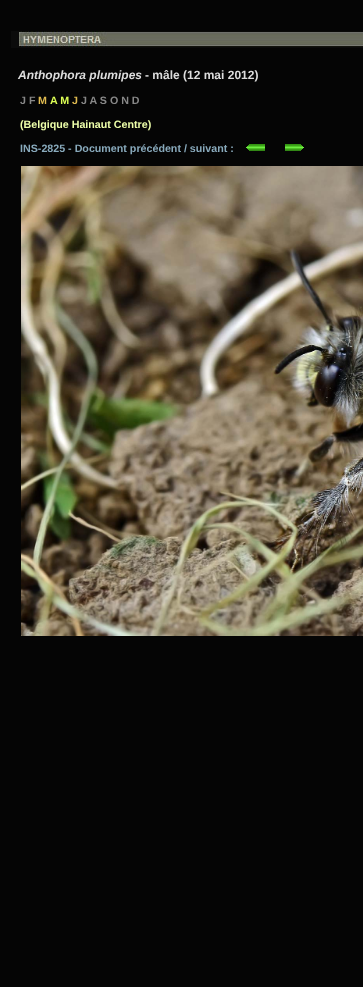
<svg xmlns="http://www.w3.org/2000/svg" width="363" height="987" viewBox="0 0 363 987">
  <rect width="100%" height="100%" fill="#050505"/>
  <image x="11" y="31" width="352" height="17" href="img1.png"/>
  <text x="18" y="79" font-family="Liberation Sans" font-size="12" font-weight="bold" font-style="italic" fill="#dddddd">Anthophora plumipes</text>
  <text x="145" y="79" font-family="Liberation Sans" font-size="12" font-weight="bold" fill="#dddddd">- mâle (12 mai 2012)</text>
  <text x="20" y="104" font-family="Liberation Sans" font-size="10.7" font-weight="bold" fill="#888888">J F</text>
  <text x="38" y="104" font-family="Liberation Sans" font-size="10.7" font-weight="bold" fill="#e0bb50">M</text>
  <text x="50" y="104" font-family="Liberation Sans" font-size="10.7" font-weight="bold" fill="#ddff55">A M</text>
  <text x="72" y="104" font-family="Liberation Sans" font-size="10.7" font-weight="bold" fill="#e0bb50">J</text>
  <text x="81" y="104" font-family="Liberation Sans" font-size="10.7" font-weight="bold" fill="#888888">J A S O N D</text>
  <text x="20" y="128" font-family="Liberation Sans" font-size="10.7" font-weight="bold" fill="#eeffaa">(Belgique Hainaut Centre)</text>
  <text x="20" y="152" font-family="Liberation Sans" font-size="10.7" font-weight="bold" fill="#89aabc">INS-2825 - Document précédent / suivant :</text>
  <image x="246" y="144" width="19" height="7" href="img2.png"/>
  <image x="285" y="144" width="19" height="7" href="img3.png"/>
  <image x="21" y="166" width="342" height="470" href="img4.png"/>
</svg>
